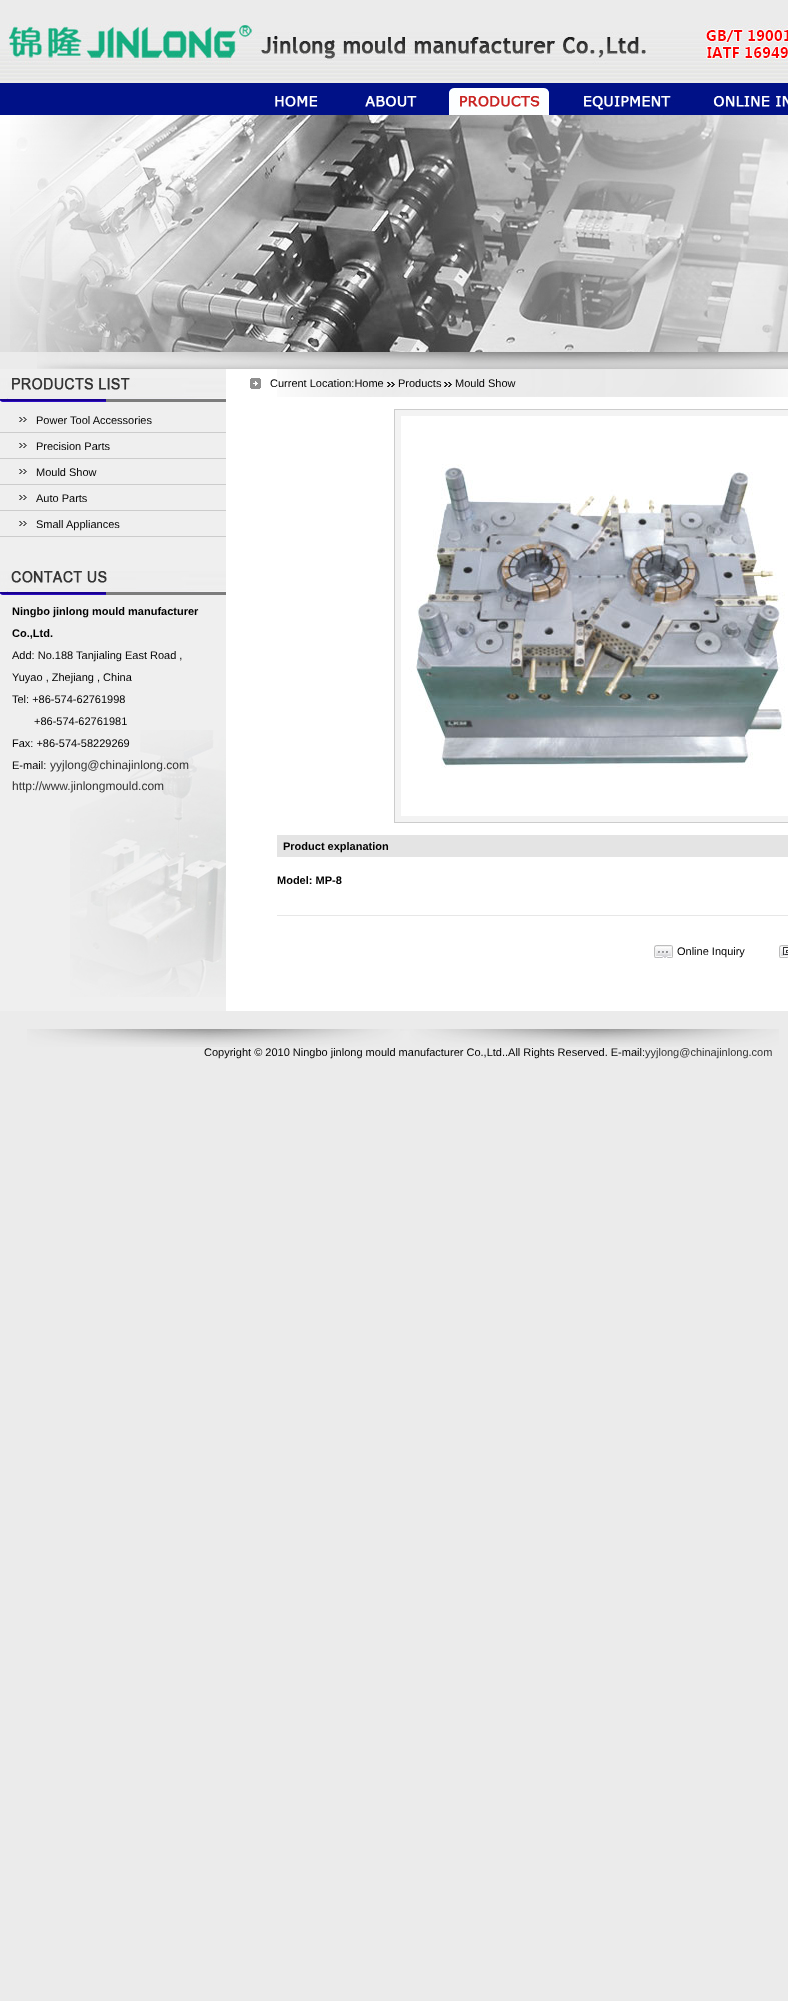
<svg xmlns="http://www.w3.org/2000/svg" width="788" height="2001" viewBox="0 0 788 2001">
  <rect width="100%" height="100%" fill="#ebebeb"/>
  <image x="0" y="49" width="788" height="34" href="img1.png"/>
  <image x="8" y="24" width="780" height="40" href="img2.png"/>
  <rect x="0" y="83" width="788" height="32" fill="#001187"/>
  <image x="275" y="96" width="43" height="11" href="img3.png"/>
  <image x="365" y="96" width="52" height="14" href="img4.png"/>
  <image x="449" y="88" width="100" height="27" href="img5.png"/>
  <image x="584" y="96" width="91" height="16" href="img6.png"/>
  <image x="713" y="96" width="75" height="15" href="img7.png"/>
  <image x="0" y="115" width="10" height="237" href="img8.png"/>
  <image x="10" y="115" width="778" height="237" href="img9.png"/>
  <image x="37" y="352" width="751" height="17" href="img10.png"/>
  <rect x="0" y="369" width="226" height="642" fill="#efefef"/>
  <image x="0" y="378" width="226" height="24" href="img11.png"/>
  <image x="19" y="417" width="8" height="5" href="img12.png"/>
  <text x="36" y="424" font-family="Liberation Sans" font-size="11" fill="#000000">Power Tool Accessories</text>
  <rect x="0" y="432" width="226" height="1" fill="#cccccc"/>
  <image x="19" y="443" width="8" height="5" href="img12.png"/>
  <text x="36" y="450" font-family="Liberation Sans" font-size="11" fill="#000000">Precision Parts</text>
  <rect x="0" y="458" width="226" height="1" fill="#cccccc"/>
  <image x="19" y="469" width="8" height="5" href="img12.png"/>
  <text x="36" y="476" font-family="Liberation Sans" font-size="11" fill="#000000">Mould Show</text>
  <rect x="0" y="484" width="226" height="1" fill="#cccccc"/>
  <image x="19" y="495" width="8" height="5" href="img12.png"/>
  <text x="36" y="502" font-family="Liberation Sans" font-size="11" fill="#000000">Auto Parts</text>
  <rect x="0" y="510" width="226" height="1" fill="#cccccc"/>
  <image x="19" y="521" width="8" height="5" href="img12.png"/>
  <text x="36" y="528" font-family="Liberation Sans" font-size="11" fill="#000000">Small Appliances</text>
  <rect x="0" y="536" width="226" height="1" fill="#cccccc"/>
  <image x="0" y="571" width="226" height="24" href="img13.png"/>
  <image x="70" y="730" width="156" height="267" href="img14.png"/>
  <text x="12" y="615" font-family="Liberation Sans" font-size="11" font-weight="bold" fill="#000000">Ningbo jinlong mould manufacturer</text>
  <text x="12" y="637" font-family="Liberation Sans" font-size="11" font-weight="bold" fill="#000000">Co.,Ltd.</text>
  <text x="12" y="659" font-family="Liberation Sans" font-size="11" fill="#000000">Add: No.188 Tanjialing East Road ,</text>
  <text x="12" y="681" font-family="Liberation Sans" font-size="11" fill="#000000">Yuyao , Zhejiang , China</text>
  <text x="12" y="703" font-family="Liberation Sans" font-size="11" fill="#000000">Tel: +86-574-62761998</text>
  <text x="34" y="725" font-family="Liberation Sans" font-size="11" fill="#000000">+86-574-62761981</text>
  <text x="12" y="747" font-family="Liberation Sans" font-size="11" fill="#000000">Fax: +86-574-58229269</text>
  <text x="12" y="769" font-family="Liberation Sans" font-size="11" fill="#000000">E-mail:</text>
  <text x="50" y="769" font-family="Liberation Sans" font-size="12" fill="#333333">yyjlong@chinajinlong.com</text>
  <text x="12" y="790" font-family="Liberation Sans" font-size="12" fill="#333333">http://www.jinlongmould.com</text>
  <rect x="226" y="369" width="562" height="642" fill="#ffffff"/>
  <image x="277" y="369" width="511" height="28" href="img15.png"/>
  <image x="250" y="378" width="11" height="11" href="img16.png"/>
  <text x="270" y="387" font-family="Liberation Sans" font-size="11" fill="#000000">Current Location:Home</text>
  <image x="387" y="382" width="8" height="5" href="img17.png"/>
  <text x="398" y="387" font-family="Liberation Sans" font-size="11" fill="#000000">Products</text>
  <image x="444" y="382" width="8" height="5" href="img18.png"/>
  <text x="455" y="387" font-family="Liberation Sans" font-size="11" fill="#000000">Mould Show</text>
  <rect x="394" y="409" width="394" height="414" fill="#cccccc"/>
  <rect x="395" y="410" width="393" height="412" fill="#f3f3f3"/>
  <image x="401" y="416" width="387" height="400" href="img19.png"/>
  <rect x="277" y="835" width="511" height="22" fill="#e4e4e4"/>
  <text x="283" y="850" font-family="Liberation Sans" font-size="11" font-weight="bold" fill="#000000">Product explanation</text>
  <text x="277" y="884" font-family="Liberation Sans" font-size="11" font-weight="bold" fill="#000000">Model: MP-8</text>
  <rect x="277" y="915" width="511" height="1" fill="#e7e7e7"/>
  <image x="654" y="945" width="19" height="13" href="img20.png"/>
  <text x="677" y="955" font-family="Liberation Sans" font-size="11" fill="#000000">Online Inquiry</text>
  <image x="779" y="945" width="9" height="13" href="img21.png"/>
  <image x="27" y="1029" width="752" height="18" href="img22.png"/>
  <text x="204" y="1056" font-family="Liberation Sans" font-size="11" fill="#000000">Copyright © 2010 Ningbo jinlong mould manufacturer Co.,Ltd..All Rights Reserved. E-mail:</text>
  <text x="645" y="1056" font-family="Liberation Sans" font-size="11" fill="#333333">yyjlong@chinajinlong.com</text>
</svg>
